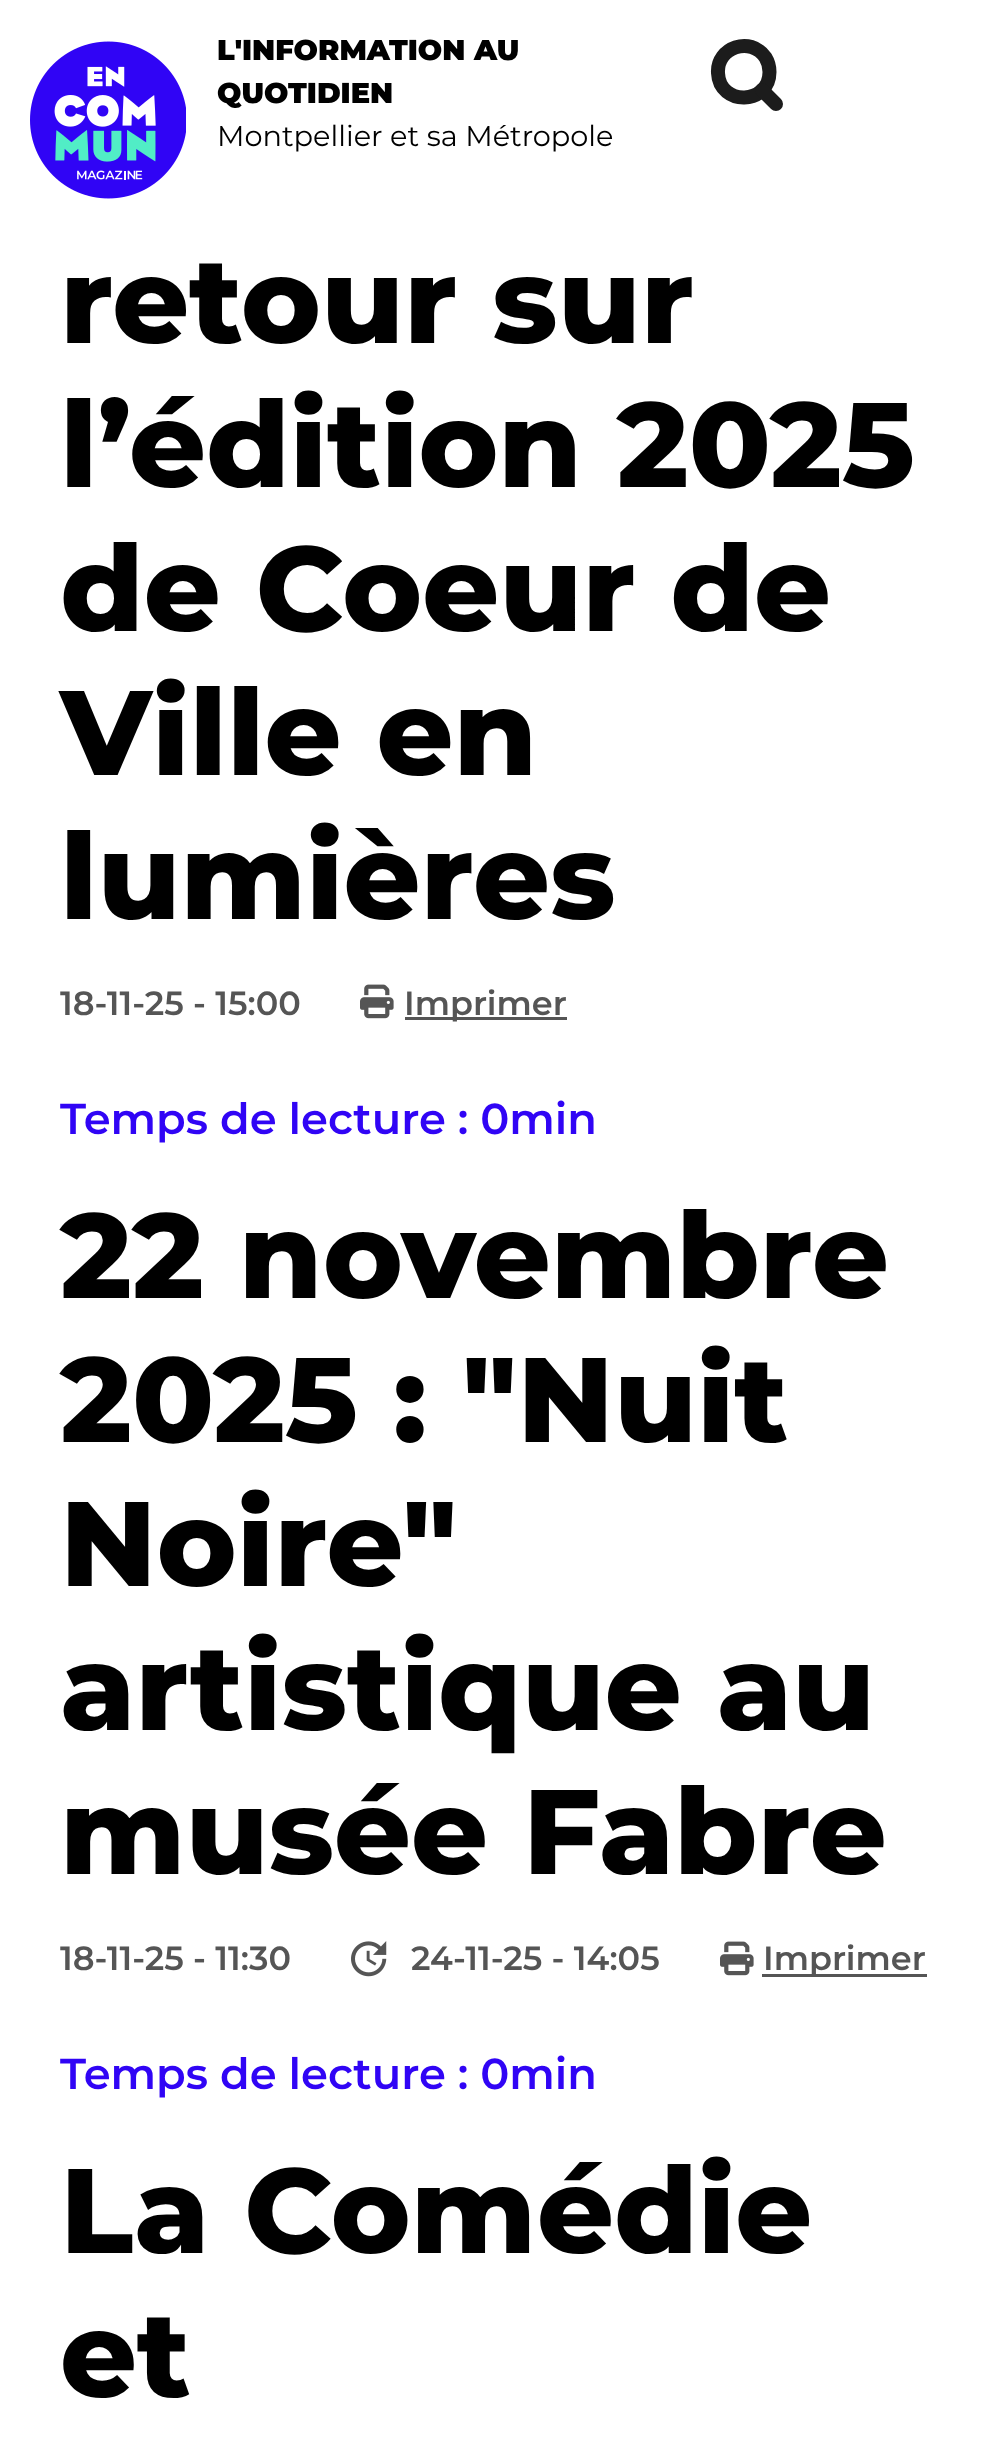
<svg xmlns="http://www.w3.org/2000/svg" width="1002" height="2456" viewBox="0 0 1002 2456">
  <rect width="100%" height="100%" fill="#ffffff"/>
  <image x="30" y="41" width="156" height="158" href="img1.png"/>
  <text x="217" y="60" font-family="Montserrat" font-size="28.75" font-weight="900" fill="#000000">L'INFORMATION AU</text>
  <text x="217" y="103" font-family="Montserrat" font-size="28.75" font-weight="900" fill="#000000">QUOTIDIEN</text>
  <text x="217" y="146" font-family="Montserrat" font-size="28.75" fill="#000000">Montpellier et sa Métropole</text>
  <path d="M769.5 72C769.5 105 719.5 106.5 718 73C716.5 47.5 750.5 35.5 765.5 57.5C768 61.5 769.5 66.5 769.5 72Z" fill="none" stroke="#1c1c1c" stroke-width="14" stroke-linecap="round"/>
  <path d="M776 104L762 90" fill="none" stroke="#1c1c1c" stroke-width="14" stroke-linecap="round" stroke-linejoin="round"/>
  <text x="60" y="343" font-family="Montserrat" font-size="120" font-weight="800" fill="#000000">retour sur</text>
  <text x="60" y="487" font-family="Montserrat" font-size="120" font-weight="800" fill="#000000">l’édition 2025</text>
  <text x="60" y="631" font-family="Montserrat" font-size="120" font-weight="800" fill="#000000">de Coeur de</text>
  <text x="60" y="775" font-family="Montserrat" font-size="120" font-weight="800" fill="#000000">Ville en</text>
  <text x="60" y="919" font-family="Montserrat" font-size="120" font-weight="800" fill="#000000">lumières</text>
  <text x="60" y="1015" font-family="Montserrat" font-size="33.5" font-weight="600" fill="#555555">18-11-25 - 15:00</text>
  <image x="360" y="984" width="34" height="35" href="img2.png"/>
  <rect x="405" y="1017" width="162" height="3" fill="#555555"/>
  <text x="404" y="1015" font-family="Montserrat" font-size="33.5" font-weight="600" fill="#555555">Imprimer</text>
  <text x="60" y="1134" font-family="Montserrat" font-size="43.25" font-weight="600" fill="#3004f5">Temps de lecture : 0min</text>
  <text x="60" y="1298" font-family="Montserrat" font-size="120" font-weight="800" fill="#000000">22 novembre</text>
  <text x="60" y="1442" font-family="Montserrat" font-size="120" font-weight="800" fill="#000000">2025 : "Nuit</text>
  <text x="60" y="1586" font-family="Montserrat" font-size="120" font-weight="800" fill="#000000">Noire"</text>
  <text x="60" y="1730" font-family="Montserrat" font-size="120" font-weight="800" fill="#000000">artistique au</text>
  <text x="60" y="1874" font-family="Montserrat" font-size="120" font-weight="800" fill="#000000">musée Fabre</text>
  <text x="60" y="1970" font-family="Montserrat" font-size="33.5" font-weight="600" fill="#555555">18-11-25 - 11:30</text>
  <image x="351" y="1941" width="36" height="36" href="img3.png"/>
  <text x="411" y="1970" font-family="Montserrat" font-size="33.5" font-weight="600" fill="#555555">24-11-25 - 14:05</text>
  <image x="720" y="1941" width="34" height="35" href="img2.png"/>
  <rect x="762" y="1974" width="165" height="3" fill="#555555"/>
  <text x="763" y="1970" font-family="Montserrat" font-size="33.5" font-weight="600" fill="#555555">Imprimer</text>
  <text x="60" y="2089" font-family="Montserrat" font-size="43.25" font-weight="600" fill="#3004f5">Temps de lecture : 0min</text>
  <text x="60" y="2253" font-family="Montserrat" font-size="120" font-weight="800" fill="#000000">La Comédie</text>
  <text x="60" y="2397" font-family="Montserrat" font-size="120" font-weight="800" fill="#000000">et</text>
</svg>
